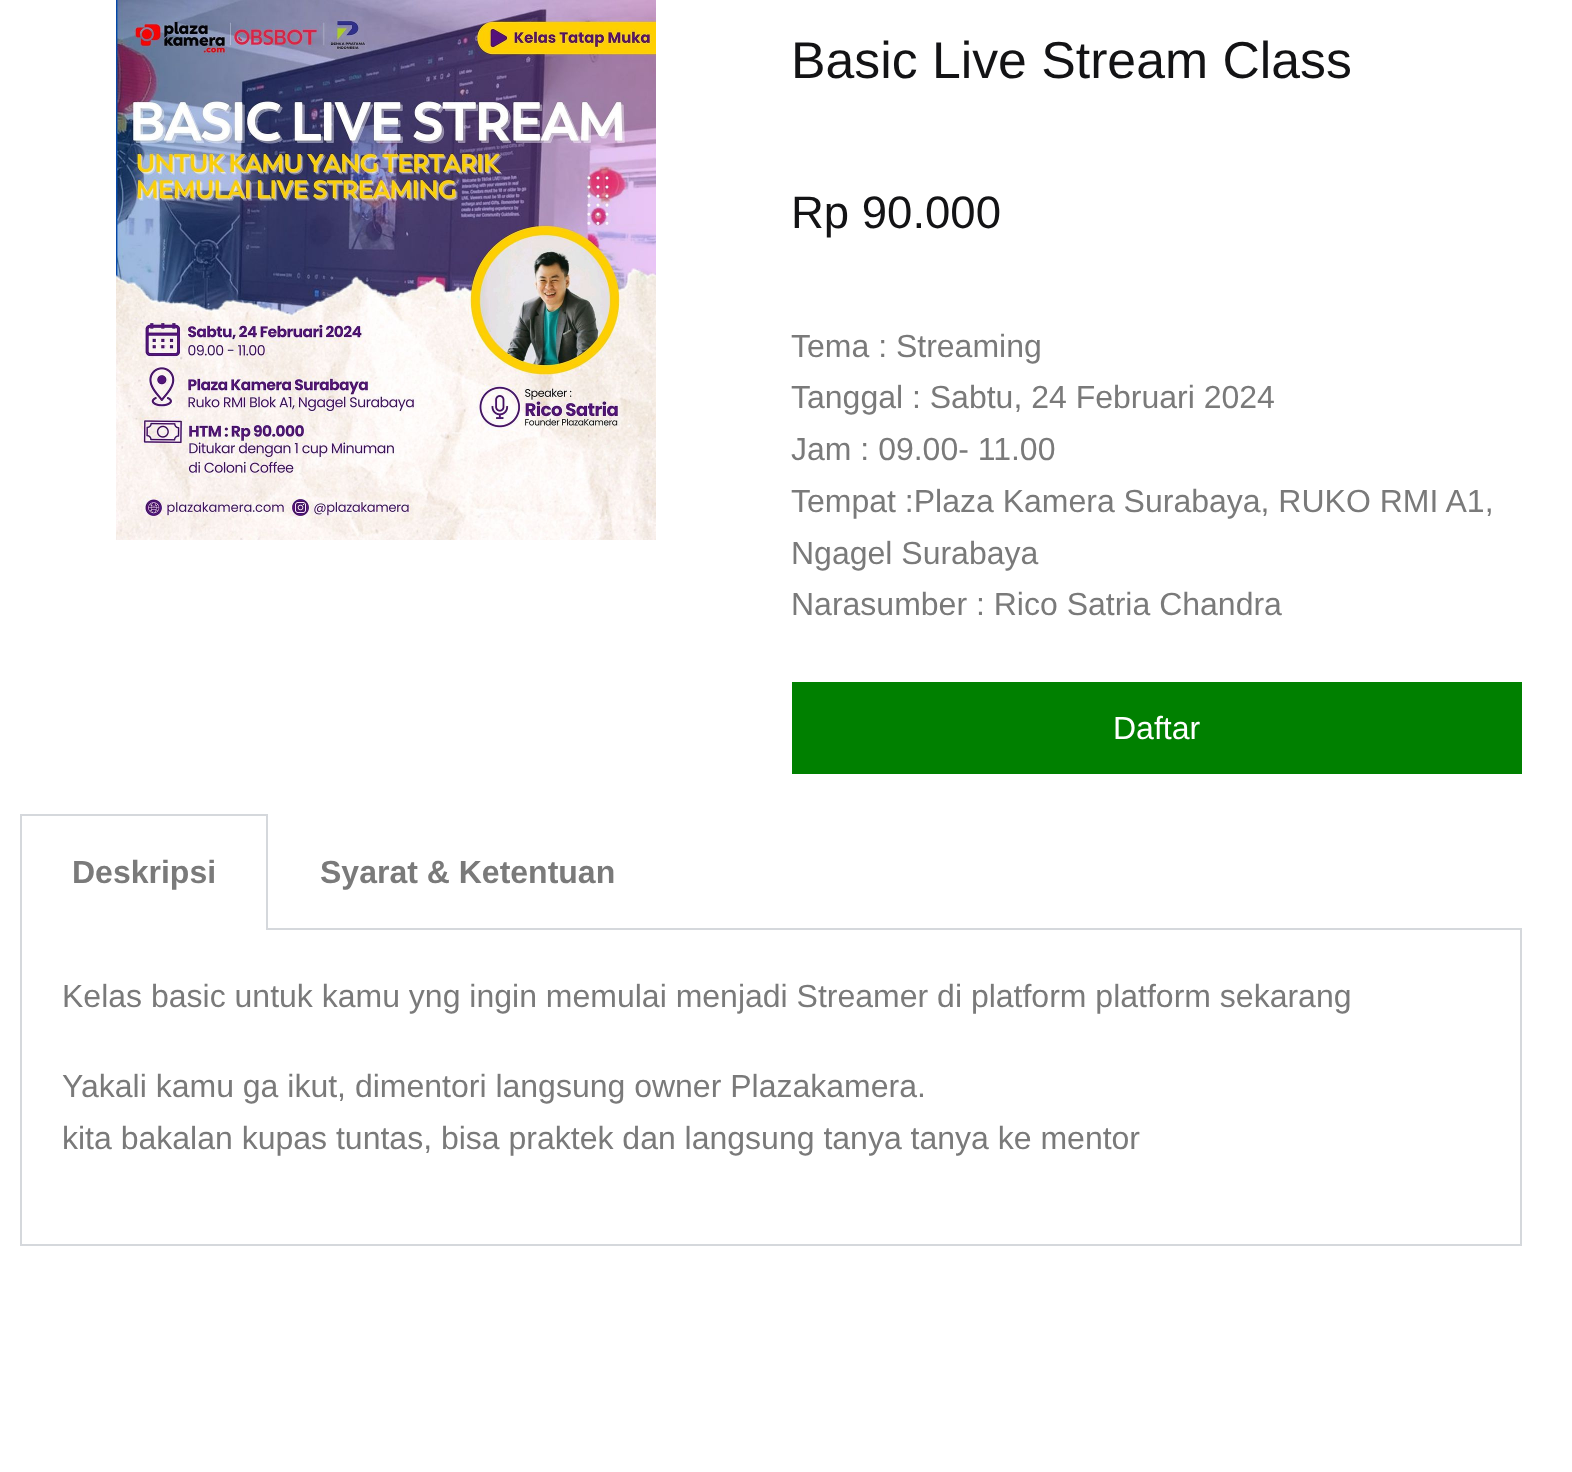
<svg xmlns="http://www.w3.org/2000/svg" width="1572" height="1472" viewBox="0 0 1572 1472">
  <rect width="100%" height="100%" fill="#ffffff"/>
  <image x="116" y="0" width="540" height="540" href="img1.png"/>
  <text x="791" y="78" font-family="Liberation Sans" font-size="51.75" fill="#131315">Basic Live Stream Class</text>
  <text x="791" y="228" font-family="Liberation Sans" font-size="45.5" fill="#131315">Rp 90.000</text>
  <text x="791" y="357" font-family="Liberation Sans" font-size="32" fill="#7a7a7a">Tema : Streaming</text>
  <text x="791" y="408" font-family="Liberation Sans" font-size="32" fill="#7a7a7a">Tanggal : Sabtu, 24 Februari 2024</text>
  <text x="791" y="460" font-family="Liberation Sans" font-size="32" fill="#7a7a7a">Jam : 09.00- 11.00</text>
  <text x="791" y="512" font-family="Liberation Sans" font-size="32" fill="#7a7a7a">Tempat :Plaza Kamera Surabaya, RUKO RMI A1,</text>
  <text x="791" y="564" font-family="Liberation Sans" font-size="32" fill="#7a7a7a">Ngagel Surabaya</text>
  <text x="791" y="615" font-family="Liberation Sans" font-size="32" fill="#7a7a7a">Narasumber : Rico Satria Chandra</text>
  <rect x="792" y="682" width="730" height="92" fill="#008000"/>
  <text x="1113" y="739" font-family="Liberation Sans" font-size="32" fill="#ffffff">Daftar</text>
  <rect x="20" y="814" width="248" height="2" fill="#d5d8dc"/>
  <rect x="266" y="814" width="2" height="116" fill="#d5d8dc"/>
  <rect x="20" y="814" width="2" height="116" fill="#d5d8dc"/>
  <text x="72" y="883" font-family="Liberation Sans" font-size="32" font-weight="bold" fill="#7a7a7a">Deskripsi</text>
  <rect x="266" y="928" width="1256" height="2" fill="#d5d8dc"/>
  <text x="320" y="883" font-family="Liberation Sans" font-size="32" font-weight="bold" fill="#7a7a7a">Syarat &amp; Ketentuan</text>
  <rect x="1520" y="930" width="2" height="316" fill="#d5d8dc"/>
  <rect x="20" y="1244" width="1502" height="2" fill="#d5d8dc"/>
  <rect x="20" y="930" width="2" height="316" fill="#d5d8dc"/>
  <text x="62" y="1007" font-family="Liberation Sans" font-size="32" fill="#7a7a7a">Kelas basic untuk kamu yng ingin memulai menjadi Streamer di platform platform sekarang</text>
  <text x="62" y="1097" font-family="Liberation Sans" font-size="32" fill="#7a7a7a">Yakali kamu ga ikut, dimentori langsung owner Plazakamera.</text>
  <text x="62" y="1149" font-family="Liberation Sans" font-size="32" fill="#7a7a7a">kita bakalan kupas tuntas, bisa praktek dan langsung tanya tanya ke mentor</text>
</svg>
